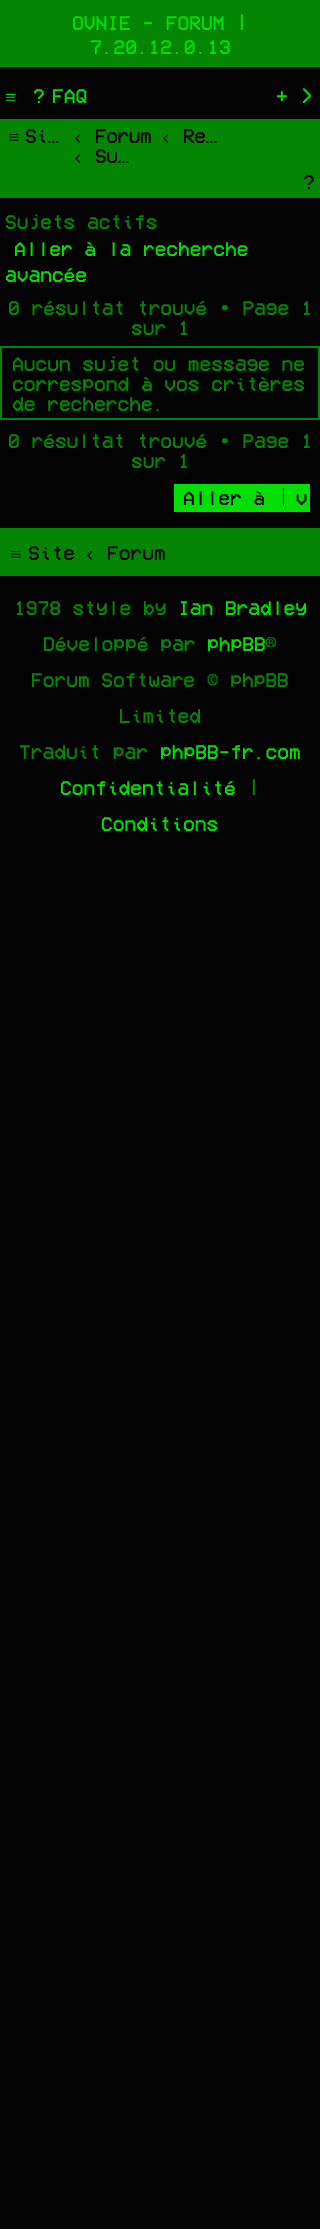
<svg xmlns="http://www.w3.org/2000/svg" width="320" height="2229" viewBox="0 0 320 2229">
  <rect width="100%" height="100%" fill="#040304"/>
  <rect x="0" y="0" width="320" height="67" fill="#048604"/>
  <text x="72" y="31" font-family="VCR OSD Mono" font-size="20" fill="#04de04">OVNIE - FORUM |</text>
  <text x="90" y="55" font-family="VCR OSD Mono" font-size="20" fill="#04de04">7.20.12.0.13</text>
  <text x="5" y="104" font-family="Liberation Serif" font-size="20" fill="#04de04">≡</text>
  <text x="33" y="104" font-family="VCR OSD Mono" font-size="20" fill="#04de04">?</text>
  <text x="52" y="104" font-family="VCR OSD Mono" font-size="20" fill="#04de04">FAQ</text>
  <text x="276" y="104" font-family="VCR OSD Mono" font-size="20" fill="#04de04">+</text>
  <text x="301" y="104" font-family="VCR OSD Mono" font-size="20" fill="#04de04">&gt;</text>
  <rect x="0" y="119" width="320" height="79" fill="#048604"/>
  <text x="8" y="144" font-family="Liberation Serif" font-size="20" letter-spacing="-0.5" fill="#040304">≡</text>
  <text x="25" y="144" font-family="VCR OSD Mono" font-size="20" letter-spacing="-0.5" fill="#040304">Si…</text>
  <text x="73" y="144" font-family="VCR OSD Mono" font-size="20" fill="#040304">‹</text>
  <text x="95" y="144" font-family="VCR OSD Mono" font-size="20" letter-spacing="-0.5" fill="#040304">Forum</text>
  <text x="161" y="144" font-family="VCR OSD Mono" font-size="20" fill="#040304">‹</text>
  <text x="183" y="144" font-family="VCR OSD Mono" font-size="20" letter-spacing="-0.5" fill="#040304">Re…</text>
  <text x="73" y="164" font-family="VCR OSD Mono" font-size="20" fill="#040304">‹</text>
  <text x="95" y="164" font-family="VCR OSD Mono" font-size="20" letter-spacing="-0.5" fill="#040304">Su…</text>
  <text x="303" y="190" font-family="VCR OSD Mono" font-size="20" fill="#040304">?</text>
  <text x="5" y="230" font-family="VCR OSD Mono" font-size="20" fill="#048604">Sujets actifs</text>
  <text x="14" y="257" font-family="VCR OSD Mono" font-size="20" fill="#04de04">Aller à la recherche</text>
  <text x="5" y="283" font-family="VCR OSD Mono" font-size="20" fill="#04de04">avancée</text>
  <text x="8" y="316" font-family="VCR OSD Mono" font-size="20" fill="#048604">0 résultat trouvé • Page 1</text>
  <text x="131" y="336" font-family="VCR OSD Mono" font-size="20" fill="#048604">sur 1</text>
  <rect x="1" y="347" width="318" height="72" fill="none" stroke="#048604" stroke-width="2"/>
  <text x="12" y="372" font-family="VCR OSD Mono" font-size="20" fill="#048604">Aucun sujet ou message ne</text>
  <text x="12" y="392" font-family="VCR OSD Mono" font-size="20" fill="#048604">correspond à vos critères</text>
  <text x="12" y="412" font-family="VCR OSD Mono" font-size="20" fill="#048604">de recherche.</text>
  <text x="8" y="449" font-family="VCR OSD Mono" font-size="20" fill="#048604">0 résultat trouvé • Page 1</text>
  <text x="131" y="469" font-family="VCR OSD Mono" font-size="20" fill="#048604">sur 1</text>
  <rect x="174" y="484" width="136" height="28" fill="#04de04"/>
  <text x="183" y="506" font-family="VCR OSD Mono" font-size="20" fill="#040304">Aller à</text>
  <rect x="283" y="488" width="1" height="18" fill="#040304"/>
  <image x="296" y="494" width="11" height="12" href="img1.png"/>
  <rect x="0" y="528" width="320" height="48" fill="#048604"/>
  <text x="10" y="561" font-family="Liberation Serif" font-size="20" fill="#040304">≡</text>
  <text x="28" y="561" font-family="VCR OSD Mono" font-size="20" fill="#040304">Site</text>
  <text x="85" y="561" font-family="VCR OSD Mono" font-size="20" fill="#040304">‹</text>
  <text x="107" y="561" font-family="VCR OSD Mono" font-size="20" fill="#040304">Forum</text>
  <text x="14" y="616" font-family="VCR OSD Mono" font-size="20" fill="#048604">1978 style by</text>
  <text x="178" y="616" font-family="VCR OSD Mono" font-size="20" fill="#04de04">Ian Bradley</text>
  <text x="43" y="652" font-family="VCR OSD Mono" font-size="20" fill="#048604">Développé par</text>
  <text x="207" y="652" font-family="VCR OSD Mono" font-size="20" fill="#04de04">phpBB</text>
  <text x="265" y="652" font-family="VCR OSD Mono" font-size="20" fill="#048604">®</text>
  <text x="31" y="688" font-family="VCR OSD Mono" font-size="20" fill="#048604">Forum Software © phpBB</text>
  <text x="119" y="724" font-family="VCR OSD Mono" font-size="20" fill="#048604">Limited</text>
  <text x="19" y="760" font-family="VCR OSD Mono" font-size="20" fill="#048604">Traduit par</text>
  <text x="160" y="760" font-family="VCR OSD Mono" font-size="20" fill="#04de04">phpBB-fr.com</text>
  <text x="60" y="796" font-family="VCR OSD Mono" font-size="20" fill="#04de04">Confidentialité</text>
  <text x="248" y="796" font-family="VCR OSD Mono" font-size="20" fill="#048604">|</text>
  <text x="101" y="832" font-family="VCR OSD Mono" font-size="20" fill="#04de04">Conditions</text>
</svg>
